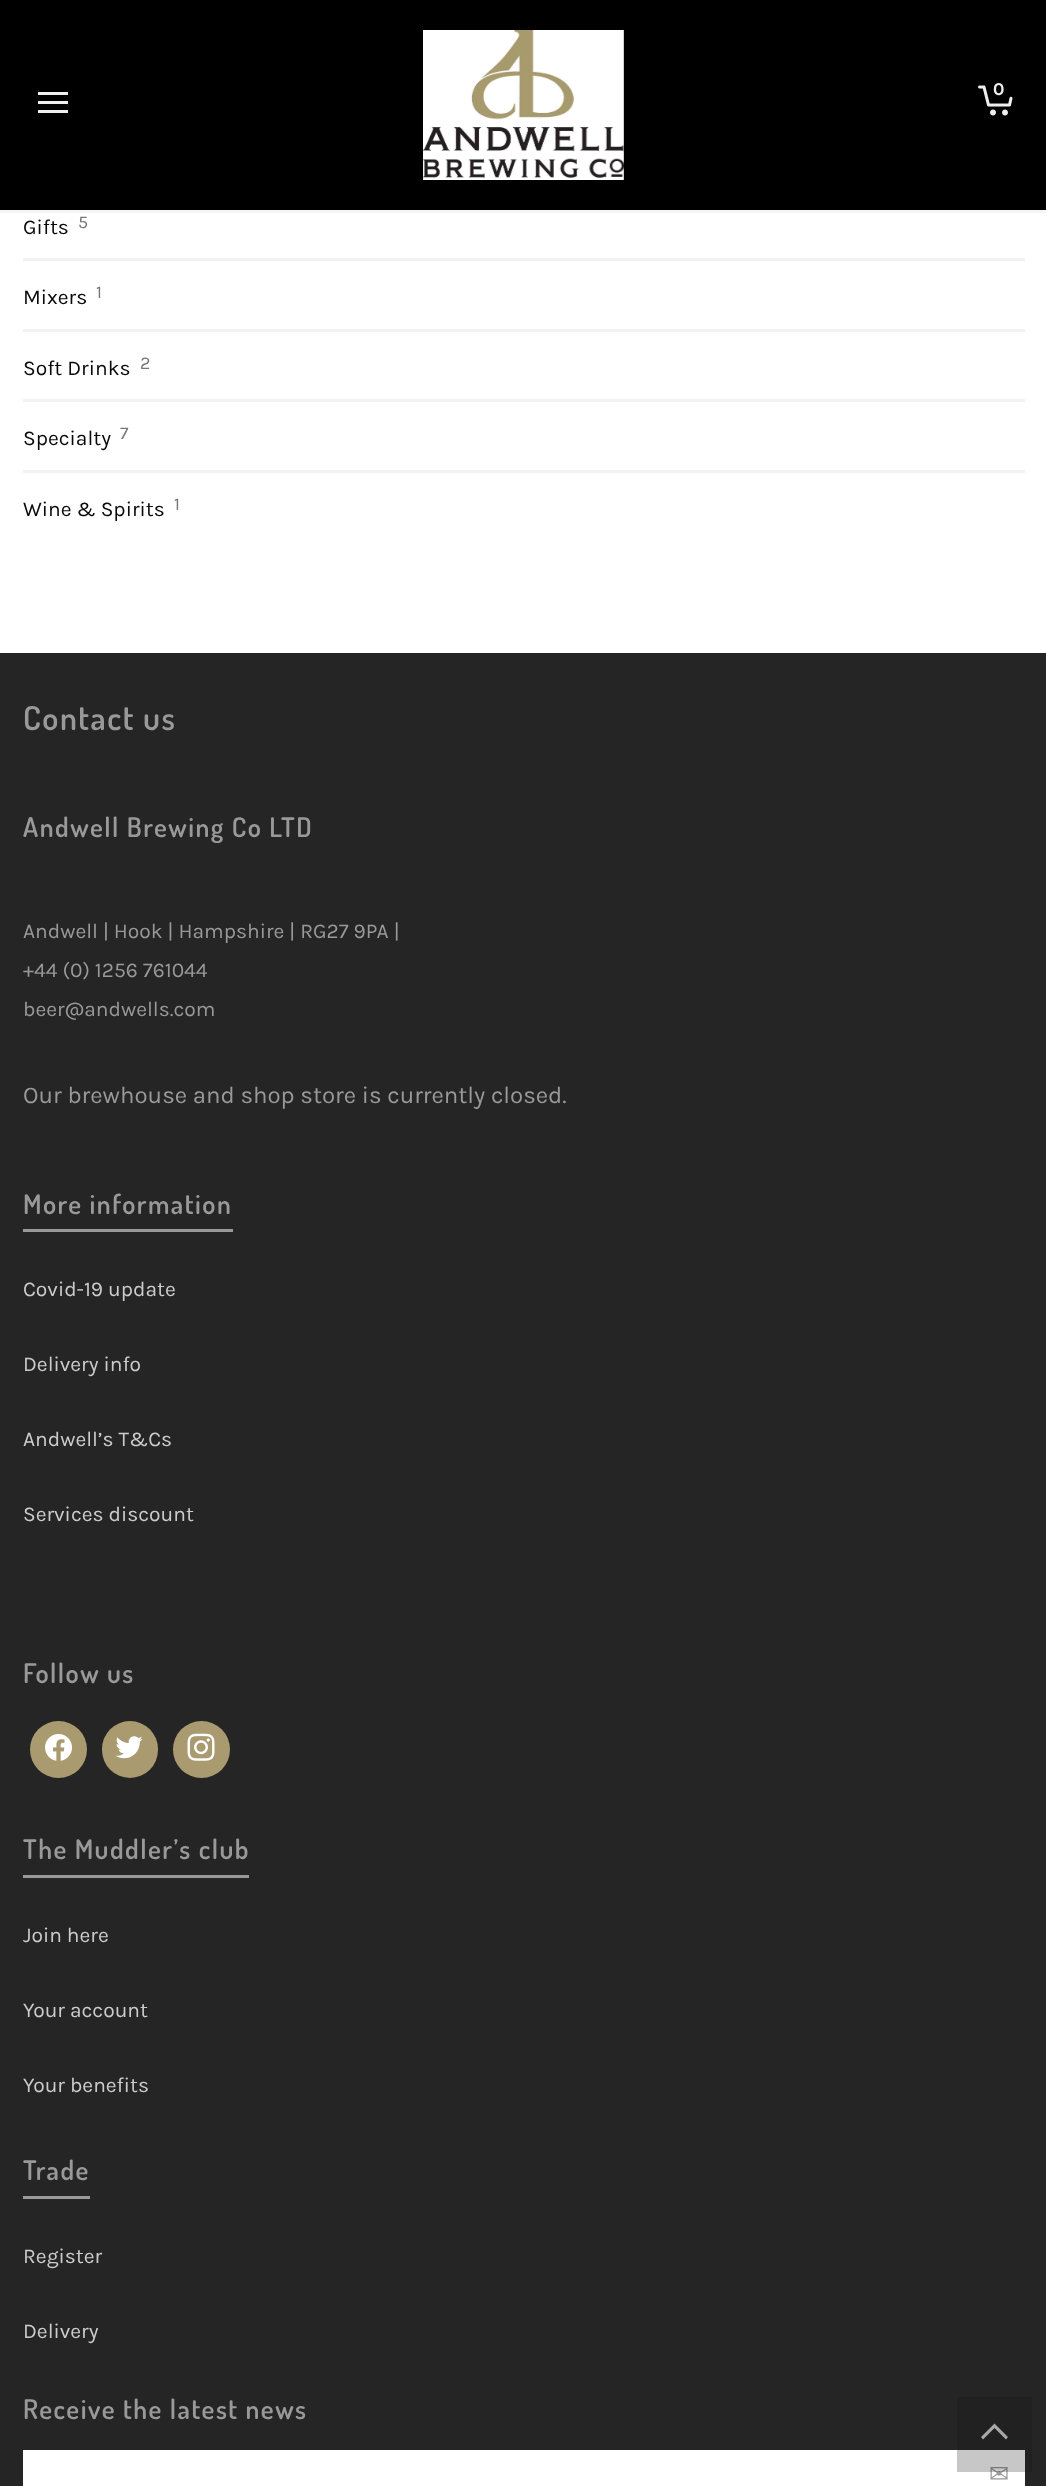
<?xml version="1.0" encoding="UTF-8"?>
<svg xmlns="http://www.w3.org/2000/svg" xmlns:xlink="http://www.w3.org/1999/xlink" width="1046" height="2486">
  <rect width="100%" height="100%" fill="#ffffff" />
  <rect width="1046" height="210" fill="#000000" />
  <rect y="210" width="1046" height="3" fill="#f5f5f5" />
  <image x="423" y="30" width="201" height="150" xlink:href="image1.png" />
  <image x="978" y="85" width="35" height="31" xlink:href="image2.png" />
  <rect x="38" y="101" width="30" height="3" fill="#efefef" />
  <rect x="38" y="92" width="30" height="3" fill="#efefef" />
  <rect x="38" y="110" width="30" height="3" fill="#efefef" />
  <rect x="23" y="258" width="1002" height="3" fill="#f2f2f2" />
  <rect x="23" y="329" width="1002" height="3" fill="#f2f2f2" />
  <rect x="23" y="399" width="1002" height="3" fill="#f2f2f2" />
  <rect x="23" y="470" width="1002" height="3" fill="#f2f2f2" />
  <rect y="653" width="1046" height="1833" fill="#252525" />
  <rect x="23" y="1229" width="210" height="3" fill="#999999" />
  <circle cx="58.5" cy="1749.5" r="28.5" fill="#a99a6f" />
  <image x="45" y="1734" width="27" height="27" xlink:href="image3.png" />
  <rect x="102" y="1721" width="56" height="57" rx="28" fill="#a99a6f" />
  <image x="115" y="1736" width="28" height="23" xlink:href="image4.png" />
  <circle cx="201.5" cy="1749.5" r="28.5" fill="#a99a6f" />
  <image x="187" y="1733" width="28" height="28" xlink:href="image5.png" />
  <rect x="23" y="1875" width="226" height="3" fill="#999999" />
  <rect x="23" y="2196" width="67" height="3" fill="#999999" />
  <rect x="23" y="2450" width="1002" height="36" fill="#ffffff" />
  <text x="993" y="95" style="font-family: Karla; font-size: 18px; font-weight: bold; fill: #efefef">0</text>
  <text x="23" y="234" style="font-family: Karla; font-size: 21px; fill: #0a0a0a">Gifts</text>
  <text x="78" y="228" style="font-family: Karla; font-size: 18px; fill: #777777">5</text>
  <text x="23" y="304" style="font-family: Karla; font-size: 21px; fill: #0a0a0a">Mixers</text>
  <text x="96" y="298" style="font-family: Karla; font-size: 18px; fill: #777777">1</text>
  <text x="23" y="375" style="font-family: Karla; font-size: 21px; fill: #0a0a0a">Soft Drinks</text>
  <text x="140" y="369" style="font-family: Karla; font-size: 18px; fill: #777777">2</text>
  <text x="23" y="445" style="font-family: Karla; font-size: 21px; fill: #0a0a0a">Specialty</text>
  <text x="120" y="439" style="font-family: Karla; font-size: 18px; fill: #777777">7</text>
  <text x="23" y="516" style="font-family: Karla; font-size: 21px; fill: #0a0a0a">Wine &amp; Spirits</text>
  <text x="174" y="510" style="font-family: Karla; font-size: 18px; fill: #777777">1</text>
  <text x="23" y="730" style="font-family: Dosis; font-size: 33px; font-weight: 600; letter-spacing: 1.5px; fill: #999999">Contact us</text>
  <text x="23" y="837" style="font-family: Dosis; font-size: 27px; font-weight: 600; letter-spacing: 1.5px; fill: #999999">Andwell Brewing Co LTD</text>
  <text x="23" y="938" style="font-family: Karla; font-size: 21px; fill: #999999">Andwell | Hook | Hampshire | RG27 9PA |</text>
  <text x="23" y="977" style="font-family: Karla; font-size: 21px; fill: #999999">+44 (0) 1256 761044</text>
  <text x="23" y="1016" style="font-family: Karla; font-size: 21px; fill: #999999">beer@andwells.com</text>
  <text x="23" y="1103" style="font-family: Karla; font-size: 24px; fill: #999999">Our brewhouse and shop store is currently closed.</text>
  <text x="23" y="1214" style="font-family: Dosis; font-size: 27px; font-weight: 600; letter-spacing: 1.5px; fill: #999999">More information</text>
  <text x="23" y="1296" style="font-family: Karla; font-size: 21px; fill: #cccccc">Covid-19 update</text>
  <text x="23" y="1371" style="font-family: Karla; font-size: 21px; fill: #cccccc">Delivery info</text>
  <text x="23" y="1446" style="font-family: Karla; font-size: 21px; fill: #cccccc">Andwell’s T&amp;Cs</text>
  <text x="23" y="1521" style="font-family: Karla; font-size: 21px; fill: #cccccc">Services discount</text>
  <text x="23" y="1683" style="font-family: Dosis; font-size: 27px; font-weight: 600; letter-spacing: 1.5px; fill: #999999">Follow us</text>
  <text x="23" y="1859" style="font-family: Dosis; font-size: 27px; font-weight: 600; letter-spacing: 1.5px; fill: #999999">The Muddler’s club</text>
  <text x="23" y="1942" style="font-family: Karla; font-size: 21px; fill: #cccccc">Join here</text>
  <text x="23" y="2017" style="font-family: Karla; font-size: 21px; fill: #cccccc">Your account</text>
  <text x="23" y="2092" style="font-family: Karla; font-size: 21px; fill: #cccccc">Your benefits</text>
  <text x="23" y="2180" style="font-family: Dosis; font-size: 27px; font-weight: 600; letter-spacing: 1.5px; fill: #999999">Trade</text>
  <text x="23" y="2263" style="font-family: Karla; font-size: 21px; fill: #cccccc">Register</text>
  <text x="23" y="2338" style="font-family: Karla; font-size: 21px; fill: #cccccc">Delivery</text>
  <text x="23" y="2419" style="font-family: Dosis; font-size: 27px; font-weight: 600; letter-spacing: 1.5px; fill: #999999">Receive the latest news</text>
  <text x="989" y="2482" style="font-family: DejaVu Sans; font-size: 24px; fill: #999999">✉</text>
  <rect x="957" y="2397" width="75" height="75" fill="#141414" fill-opacity="0.24" />
  <path d="M 981 2437 l 2 2.5 l 11.5 -11.5 l 11.5 11.5 l 2 -2.5 l -13.5 -13.5 z" fill="#a8a8a8" />
</svg>
